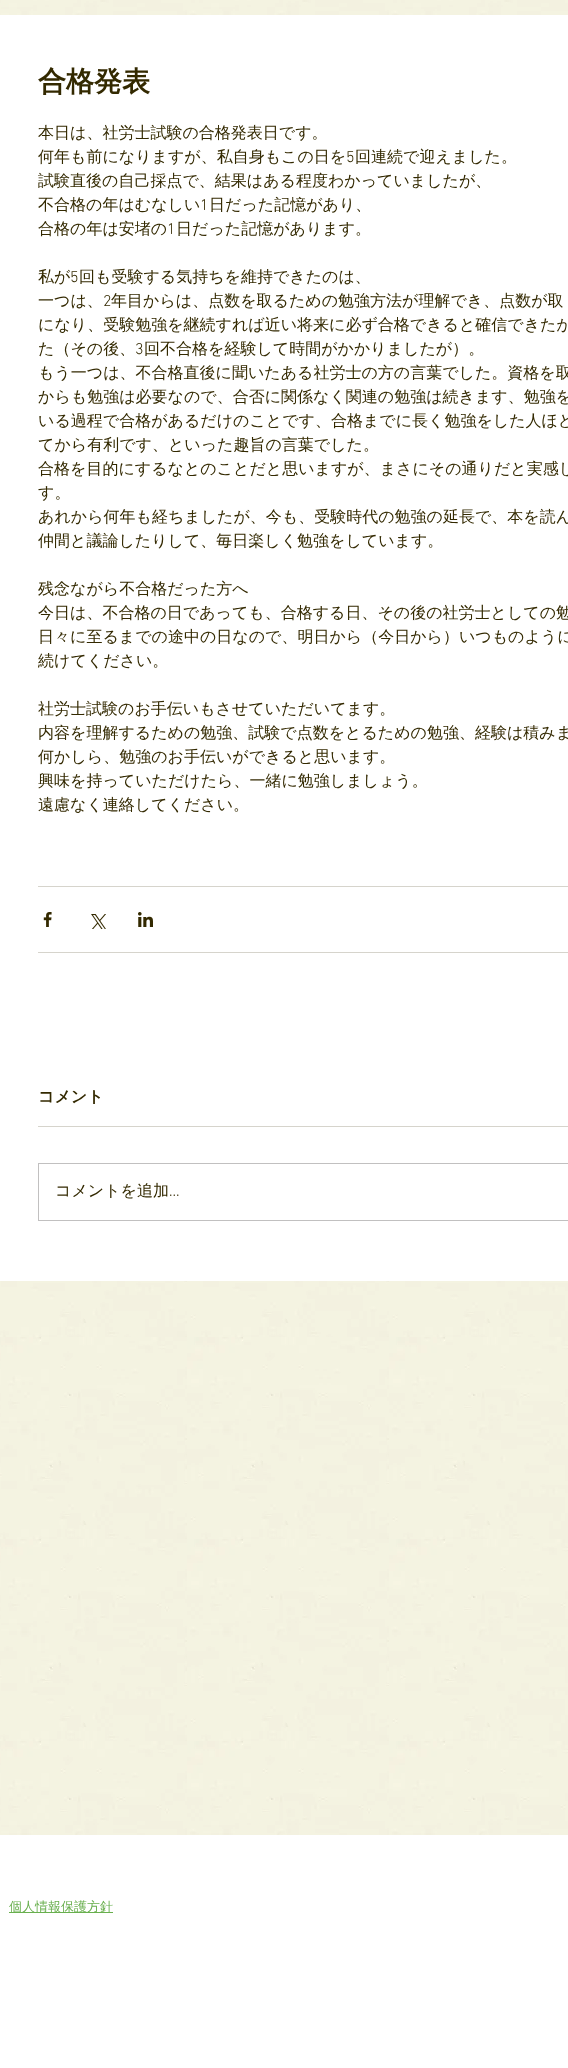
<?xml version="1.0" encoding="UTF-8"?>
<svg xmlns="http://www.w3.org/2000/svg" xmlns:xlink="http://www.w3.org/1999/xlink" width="568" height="2068">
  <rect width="100%" height="100%" fill="#ffffff" />
  <image x="0" y="0" width="568" height="1835" xlink:href="image1.png" />
  <rect y="15" width="568" height="1266" fill="#ffffff" />
  <rect x="38" y="886" width="530" height="1" fill="#d6d4cc" />
  <image x="43" y="912" width="9" height="15" xlink:href="image2.png" />
  <image x="91" y="914" width="15" height="15" xlink:href="image3.png" />
  <image x="138" y="912" width="15" height="15" xlink:href="image4.png" />
  <rect x="38" y="952" width="530" height="1" fill="#d6d4cc" />
  <rect x="38" y="1126" width="530" height="1" fill="#d6d4cc" />
  <rect x="38.5" y="1163.5" width="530" height="57" fill="none" stroke="#c1c0c0" />
  <rect x="9" y="1912" width="104" height="1" fill="#68af4d" />
  <text x="38" y="91" style="font-family: WenQuanYi Zen Hei; font-size: 28px; font-weight: bold; fill: #332900">合格発表</text>
  <text x="38" y="138" style="font-family: WenQuanYi Zen Hei; font-size: 16px; font-weight: 500; fill: #332900">本日は、社労士試験の合格発表日です。</text>
  <text x="38" y="162" style="font-family: WenQuanYi Zen Hei; font-size: 16px; font-weight: 500; fill: #332900">何年も前になりますが、私自身もこの日を</text>
  <text x="346" y="162" style="font-family: 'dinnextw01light'; font-size: 16px; font-weight: 300; fill: #332900">5</text>
  <text x="355" y="162" style="font-family: WenQuanYi Zen Hei; font-size: 16px; font-weight: 500; fill: #332900">回連続で迎えました。</text>
  <text x="38" y="186" style="font-family: WenQuanYi Zen Hei; font-size: 16px; font-weight: 500; fill: #332900">試験直後の自己採点で、結果はある程度わかっていましたが、</text>
  <text x="38" y="210" style="font-family: WenQuanYi Zen Hei; font-size: 16px; font-weight: 500; fill: #332900">不合格の年はむなしい</text>
  <text x="200" y="210" style="font-family: 'dinnextw01light'; font-size: 16px; font-weight: 300; fill: #332900">1</text>
  <text x="209" y="210" style="font-family: WenQuanYi Zen Hei; font-size: 16px; font-weight: 500; fill: #332900">日だった記憶があり、</text>
  <text x="38" y="234" style="font-family: WenQuanYi Zen Hei; font-size: 16px; font-weight: 500; fill: #332900">合格の年は安堵の</text>
  <text x="167" y="234" style="font-family: 'dinnextw01light'; font-size: 16px; font-weight: 300; fill: #332900">1</text>
  <text x="176" y="234" style="font-family: WenQuanYi Zen Hei; font-size: 16px; font-weight: 500; fill: #332900">日だった記憶があります。</text>
  <text x="38" y="282" style="font-family: WenQuanYi Zen Hei; font-size: 16px; font-weight: 500; fill: #332900">私が</text>
  <text x="70" y="282" style="font-family: 'dinnextw01light'; font-size: 16px; font-weight: 300; fill: #332900">5</text>
  <text x="79" y="282" style="font-family: WenQuanYi Zen Hei; font-size: 16px; font-weight: 500; fill: #332900">回も受験する気持ちを維持できたのは、</text>
  <text x="38" y="306" style="font-family: WenQuanYi Zen Hei; font-size: 16px; font-weight: 500; fill: #332900">一つは、</text>
  <text x="103" y="306" style="font-family: 'dinnextw01light'; font-size: 16px; font-weight: 300; fill: #332900">2</text>
  <text x="111" y="306" style="font-family: WenQuanYi Zen Hei; font-size: 16px; font-weight: 500; fill: #332900">年目からは、点数を取るための勉強方法が理解でき、点数が取</text>
  <text x="38" y="330" style="font-family: WenQuanYi Zen Hei; font-size: 16px; font-weight: 500; fill: #332900">になり、受験勉強を継続すれば近い将来に必ず合格できると確信できたか</text>
  <text x="38" y="354" style="font-family: WenQuanYi Zen Hei; font-size: 16px; font-weight: 500; fill: #332900">た（その後、</text>
  <text x="135" y="354" style="font-family: 'dinnextw01light'; font-size: 16px; font-weight: 300; fill: #332900">3</text>
  <text x="144" y="354" style="font-family: WenQuanYi Zen Hei; font-size: 16px; font-weight: 500; fill: #332900">回不合格を経験して時間がかかりましたが）。</text>
  <text x="38" y="378" style="font-family: WenQuanYi Zen Hei; font-size: 16px; font-weight: 500; fill: #332900">もう一つは、不合格直後に聞いたある社労士の方の言葉でした。資格を取</text>
  <text x="38" y="402" style="font-family: WenQuanYi Zen Hei; font-size: 16px; font-weight: 500; fill: #332900">からも勉強は必要なので、合否に関係なく関連の勉強は続きます、勉強を</text>
  <text x="38" y="426" style="font-family: WenQuanYi Zen Hei; font-size: 16px; font-weight: 500; fill: #332900">いる過程で合格があるだけのことです、合格までに長く勉強をした人ほど</text>
  <text x="38" y="450" style="font-family: WenQuanYi Zen Hei; font-size: 16px; font-weight: 500; fill: #332900">てから有利です、といった趣旨の言葉でした。</text>
  <text x="38" y="474" style="font-family: WenQuanYi Zen Hei; font-size: 16px; font-weight: 500; fill: #332900">合格を目的にするなとのことだと思いますが、まさにその通りだと実感し</text>
  <text x="38" y="498" style="font-family: WenQuanYi Zen Hei; font-size: 16px; font-weight: 500; fill: #332900">す。</text>
  <text x="38" y="522" style="font-family: WenQuanYi Zen Hei; font-size: 16px; font-weight: 500; fill: #332900">あれから何年も経ちましたが、今も、受験時代の勉強の延長で、本を読ん</text>
  <text x="38" y="546" style="font-family: WenQuanYi Zen Hei; font-size: 16px; font-weight: 500; fill: #332900">仲間と議論したりして、毎日楽しく勉強をしています。</text>
  <text x="38" y="594" style="font-family: WenQuanYi Zen Hei; font-size: 16px; font-weight: 500; fill: #332900">残念ながら不合格だった方へ</text>
  <text x="38" y="618" style="font-family: WenQuanYi Zen Hei; font-size: 16px; font-weight: 500; fill: #332900">今日は、不合格の日であっても、合格する日、その後の社労士としての勉</text>
  <text x="38" y="642" style="font-family: WenQuanYi Zen Hei; font-size: 16px; font-weight: 500; fill: #332900">日々に至るまでの途中の日なので、明日から（今日から）いつものように</text>
  <text x="38" y="666" style="font-family: WenQuanYi Zen Hei; font-size: 16px; font-weight: 500; fill: #332900">続けてください。</text>
  <text x="38" y="714" style="font-family: WenQuanYi Zen Hei; font-size: 16px; font-weight: 500; fill: #332900">社労士試験のお手伝いもさせていただいてます。</text>
  <text x="38" y="738" style="font-family: WenQuanYi Zen Hei; font-size: 16px; font-weight: 500; fill: #332900">内容を理解するための勉強、試験で点数をとるための勉強、経験は積みま</text>
  <text x="38" y="762" style="font-family: WenQuanYi Zen Hei; font-size: 16px; font-weight: 500; fill: #332900">何かしら、勉強のお手伝いができると思います。</text>
  <text x="38" y="786" style="font-family: WenQuanYi Zen Hei; font-size: 16px; font-weight: 500; fill: #332900">興味を持っていただけたら、一緒に勉強しましょう。</text>
  <text x="38" y="810" style="font-family: WenQuanYi Zen Hei; font-size: 16px; font-weight: 500; fill: #332900">遠慮なく連絡してください。</text>
  <text x="38" y="1102" style="font-family: WenQuanYi Zen Hei; font-size: 16px; font-weight: bold; fill: #332900">コメント</text>
  <text x="55" y="1196" style="font-family: WenQuanYi Zen Hei; font-size: 16px; font-weight: 500; fill: #332900">コメントを追加</text>
  <text x="169" y="1196" style="font-family: 'dinnextw01light'; font-size: 16px; font-weight: 300; fill: #332900">…</text>
  <text x="9" y="1911" style="font-family: WenQuanYi Zen Hei; font-size: 13px; font-weight: 500; fill: #68af4d">個人情報保護方針</text>
</svg>
